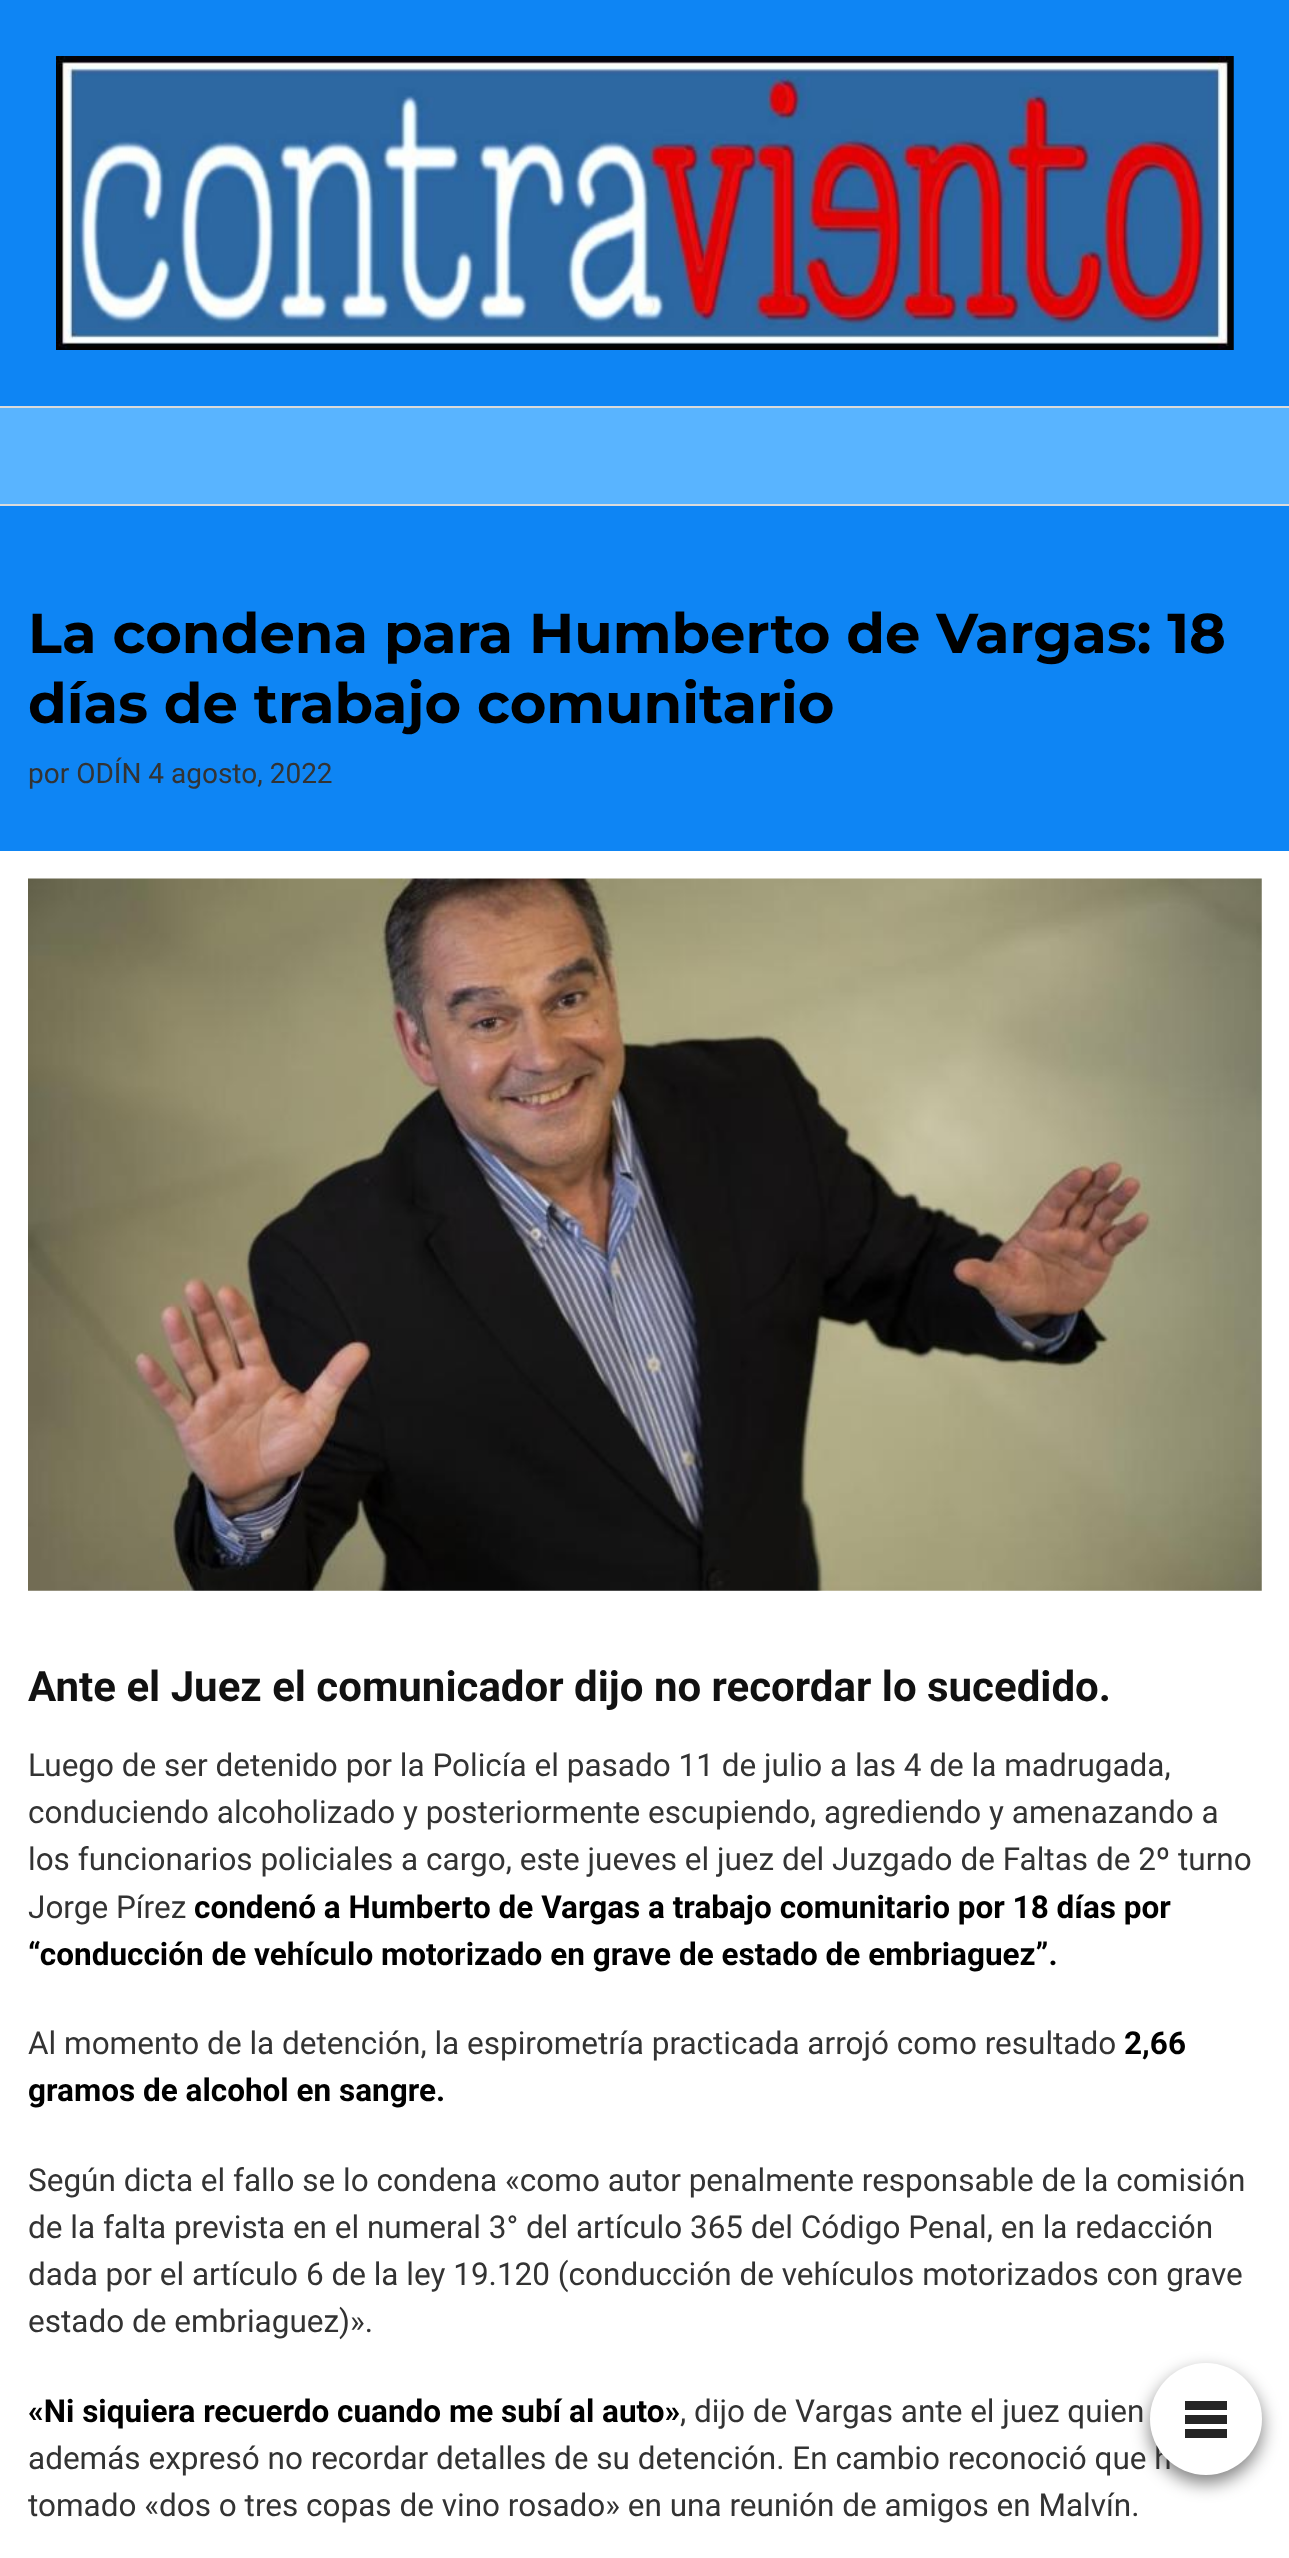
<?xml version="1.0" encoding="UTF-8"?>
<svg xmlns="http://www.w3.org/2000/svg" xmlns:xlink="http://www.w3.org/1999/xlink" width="1289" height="2558">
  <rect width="100%" height="100%" fill="#0e85f4" />
  <rect y="406" width="1289" height="2" fill="#dbdbdb" />
  <image x="56" y="56" width="1178" height="294" xlink:href="image1.png" />
  <rect y="408" width="1289" height="96" fill="#59b4ff" />
  <rect y="504" width="1289" height="2" fill="#dbdbdb" />
  <rect y="851" width="1289" height="1707" fill="#ffffff" />
  <rect x="1150" y="2371" width="112" height="112" rx="56" fill="#000000" fill-opacity="0.5" filter="blur(9px)" />
  <image x="28" y="878" width="1234" height="713" xlink:href="image2.png" />
  <text x="28" y="653" style="font-family: Montserrat; font-size: 56px; font-weight: bold; fill: #000000">La condena para Humberto de Vargas: 18</text>
  <text x="28" y="723" style="font-family: Montserrat; font-size: 56px; font-weight: bold; fill: #000000">días de trabajo comunitario</text>
  <text x="28" y="783" style="font-family: Roboto; font-size: 28px; fill: #333333">por ODÍN 4 agosto, 2022</text>
  <text x="28" y="1701" style="font-family: Roboto; font-size: 42px; font-weight: bold; fill: #111111">Ante el Juez el comunicador dijo no recordar lo sucedido.</text>
  <text x="28" y="1776" style="font-family: Roboto; font-size: 31.5px; fill: #333333">Luego de ser detenido por la Policía el pasado 11 de julio a las 4 de la madrugada,</text>
  <text x="28" y="1823" style="font-family: Roboto; font-size: 31.5px; fill: #333333">conduciendo alcoholizado y posteriormente escupiendo, agrediendo y amenazando a</text>
  <text x="28" y="1870" style="font-family: Roboto; font-size: 31.5px; fill: #333333">los funcionarios policiales a cargo, este jueves el juez del Juzgado de Faltas de 2º turno</text>
  <text x="28" y="1918" style="font-family: Roboto; font-size: 31.5px; fill: #333333">Jorge Pírez</text>
  <text x="194" y="1918" style="font-family: Roboto; font-size: 31.5px; font-weight: bold; fill: #000000">condenó a Humberto de Vargas a trabajo comunitario por 18 días por</text>
  <text x="28" y="1965" style="font-family: Roboto; font-size: 31.5px; font-weight: bold; fill: #000000">“conducción de vehículo motorizado en grave de estado de embriaguez”.</text>
  <text x="28" y="2054" style="font-family: Roboto; font-size: 31.5px; fill: #333333">Al momento de la detención, la espirometría practicada arrojó como resultado</text>
  <text x="1124" y="2054" style="font-family: Roboto; font-size: 31.5px; font-weight: bold; fill: #000000">2,66</text>
  <text x="28" y="2101" style="font-family: Roboto; font-size: 31.5px; font-weight: bold; fill: #000000">gramos de alcohol en sangre.</text>
  <text x="28" y="2191" style="font-family: Roboto; font-size: 31.5px; fill: #333333">Según dicta el fallo se lo condena «como autor penalmente responsable de la comisión</text>
  <text x="28" y="2238" style="font-family: Roboto; font-size: 31.5px; fill: #333333">de la falta prevista en el numeral 3° del artículo 365 del Código Penal, en la redacción</text>
  <text x="28" y="2285" style="font-family: Roboto; font-size: 31.5px; fill: #333333">dada por el artículo 6 de la ley 19.120 (conducción de vehículos motorizados con grave</text>
  <text x="28" y="2332" style="font-family: Roboto; font-size: 31.5px; fill: #333333">estado de embriaguez)».</text>
  <text x="28" y="2422" style="font-family: Roboto; font-size: 31.5px; font-weight: bold; fill: #000000">«Ni siquiera recuerdo cuando me subí al auto»</text>
  <text x="680" y="2422" style="font-family: Roboto; font-size: 31.5px; fill: #333333">, dijo de Vargas ante el juez quien</text>
  <text x="28" y="2469" style="font-family: Roboto; font-size: 31.5px; fill: #333333">además expresó no recordar detalles de su detención. En cambio reconoció que h</text>
  <circle cx="1206" cy="2419" r="56" fill="#ffffff" />
  <rect x="1185" y="2429" width="42" height="9" fill="#252525" />
  <rect x="1185" y="2401" width="42" height="9" fill="#252525" />
  <rect x="1185" y="2415" width="42" height="9" fill="#252525" />
  <text x="28" y="2516" style="font-family: Roboto; font-size: 31.5px; fill: #333333">tomado «dos o tres copas de vino rosado» en una reunión de amigos en Malvín.</text>
</svg>
